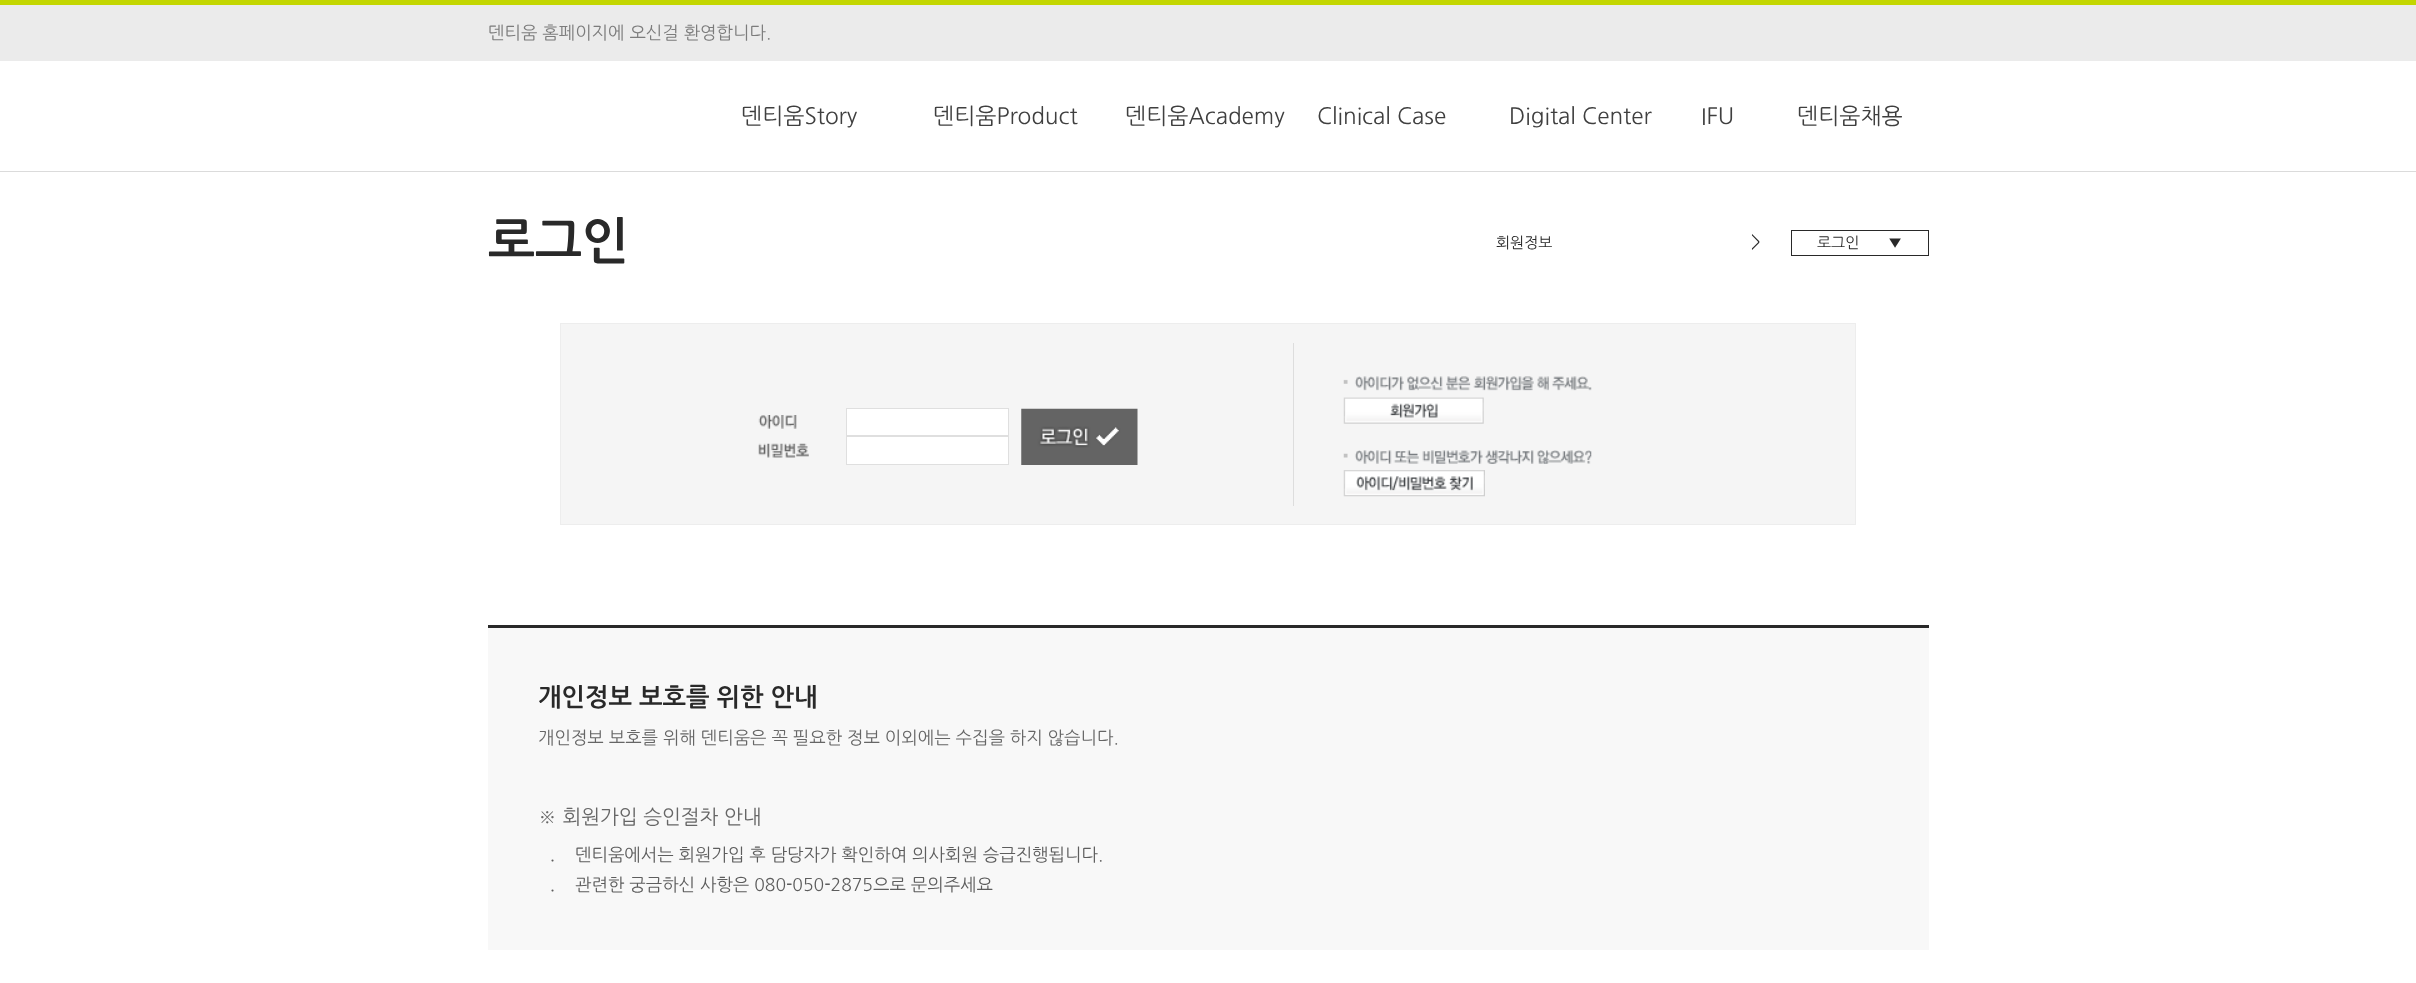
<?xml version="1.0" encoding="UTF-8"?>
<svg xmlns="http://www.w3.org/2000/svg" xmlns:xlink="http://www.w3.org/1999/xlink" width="2416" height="983">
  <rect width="100%" height="100%" fill="#ffffff" />
  <rect y="5" width="2416" height="56" fill="#ebebeb" />
  <rect width="2416" height="5" fill="#c3d600" />
  <rect y="171" width="2416" height="1" fill="#dbdbdb" />
  <rect x="1791.5" y="230.5" width="137" height="25" fill="none" stroke="#292929" />
  <rect x="561" y="324" width="1294" height="200" fill="#f5f5f5" />
  <rect x="560" y="323" width="1296" height="1" fill="#ededed" />
  <rect x="1855" y="323" width="1" height="202" fill="#ededed" />
  <rect x="560" y="524" width="1296" height="1" fill="#ededed" />
  <rect x="560" y="323" width="1" height="202" fill="#ededed" />
  <rect x="1293" y="343" width="1" height="163" fill="#dddddd" />
  <image x="758" y="415" width="39" height="14" xlink:href="image1.png" />
  <rect x="846.5" y="408.5" width="162" height="27" fill="#ffffff" stroke="#dfdfdf" />
  <image x="758" y="443" width="51" height="15" xlink:href="image2.png" />
  <rect x="846.5" y="436.5" width="162" height="28" fill="#ffffff" stroke="#dfdfdf" />
  <image x="1021" y="408" width="117" height="57" xlink:href="image3.png" />
  <image x="1343" y="376" width="249" height="15" xlink:href="image4.png" />
  <image x="1343" y="397" width="141" height="27" xlink:href="image5.png" />
  <image x="1343" y="450" width="249" height="14" xlink:href="image6.png" />
  <image x="1343" y="470" width="142" height="27" xlink:href="image7.png" />
  <rect x="488" y="628" width="1441" height="322" fill="#f8f8f8" />
  <rect x="488" y="625" width="1441" height="3" fill="#292929" />
  <text x="488" y="39" style="font-family: NanumGothic; font-size: 17.5px; fill: #7c7c7c">덴티움 홈페이지에 오신걸 환영합니다.</text>
  <text x="741" y="124" style="font-family: NanumGothic; font-size: 22.5px; fill: #3f3f3f">덴티움Story</text>
  <text x="933" y="124" style="font-family: NanumGothic; font-size: 22.5px; fill: #3f3f3f">덴티움Product</text>
  <text x="1125" y="124" style="font-family: NanumGothic; font-size: 22.5px; fill: #3f3f3f">덴티움Academy</text>
  <text x="1317" y="124" style="font-family: NanumGothic; font-size: 22.5px; fill: #3f3f3f">Clinical Case</text>
  <text x="1509" y="124" style="font-family: NanumGothic; font-size: 22.5px; fill: #3f3f3f">Digital Center</text>
  <text x="1701" y="124" style="font-family: NanumGothic; font-size: 22.5px; fill: #3f3f3f">IFU</text>
  <text x="1797" y="124" style="font-family: NanumGothic; font-size: 22.5px; fill: #3f3f3f">덴티움채용</text>
  <text x="488" y="259" style="font-family: NanumGothic; font-size: 50px; font-weight: bold; fill: #292929">로그인</text>
  <text x="1496" y="248" style="font-family: NanumGothic; font-size: 15px; fill: #292929">회원정보</text>
  <text x="1751" y="248" style="font-family: NanumGothic; font-size: 17.5px; fill: #292929">&gt;</text>
  <text x="1817" y="248" style="font-family: NanumGothic; font-size: 15px; fill: #292929">로그인</text>
  <text x="1888" y="248" style="font-family: NanumGothic; font-size: 15px; fill: #292929">▼</text>
  <text x="538" y="706" style="font-family: NanumGothic; font-size: 25px; font-weight: bold; fill: #292929">개인정보 보호를 위한 안내</text>
  <text x="538" y="744" style="font-family: NanumGothic; font-size: 17.5px; fill: #666666">개인정보 보호를 위해 덴티움은 꼭 필요한 정보 이외에는 수집을 하지 않습니다.</text>
  <text x="538" y="824" style="font-family: NanumGothic; font-size: 20px; fill: #666666">※ 회원가입 승인절차 안내</text>
  <text x="550" y="867" style="font-family: NanumGothic; font-size: 17.5px; fill: #5d5d5d">·</text>
  <text x="575" y="861" style="font-family: NanumGothic; font-size: 17.5px; fill: #5d5d5d">덴티움에서는 회원가입 후 담당자가 확인하여 의사회원 승급진행됩니다.</text>
  <text x="550" y="897" style="font-family: NanumGothic; font-size: 17.5px; fill: #5d5d5d">·</text>
  <text x="575" y="891" style="font-family: NanumGothic; font-size: 17.5px; fill: #5d5d5d">관련한 궁금하신 사항은 080-050-2875으로 문의주세요</text>
</svg>
